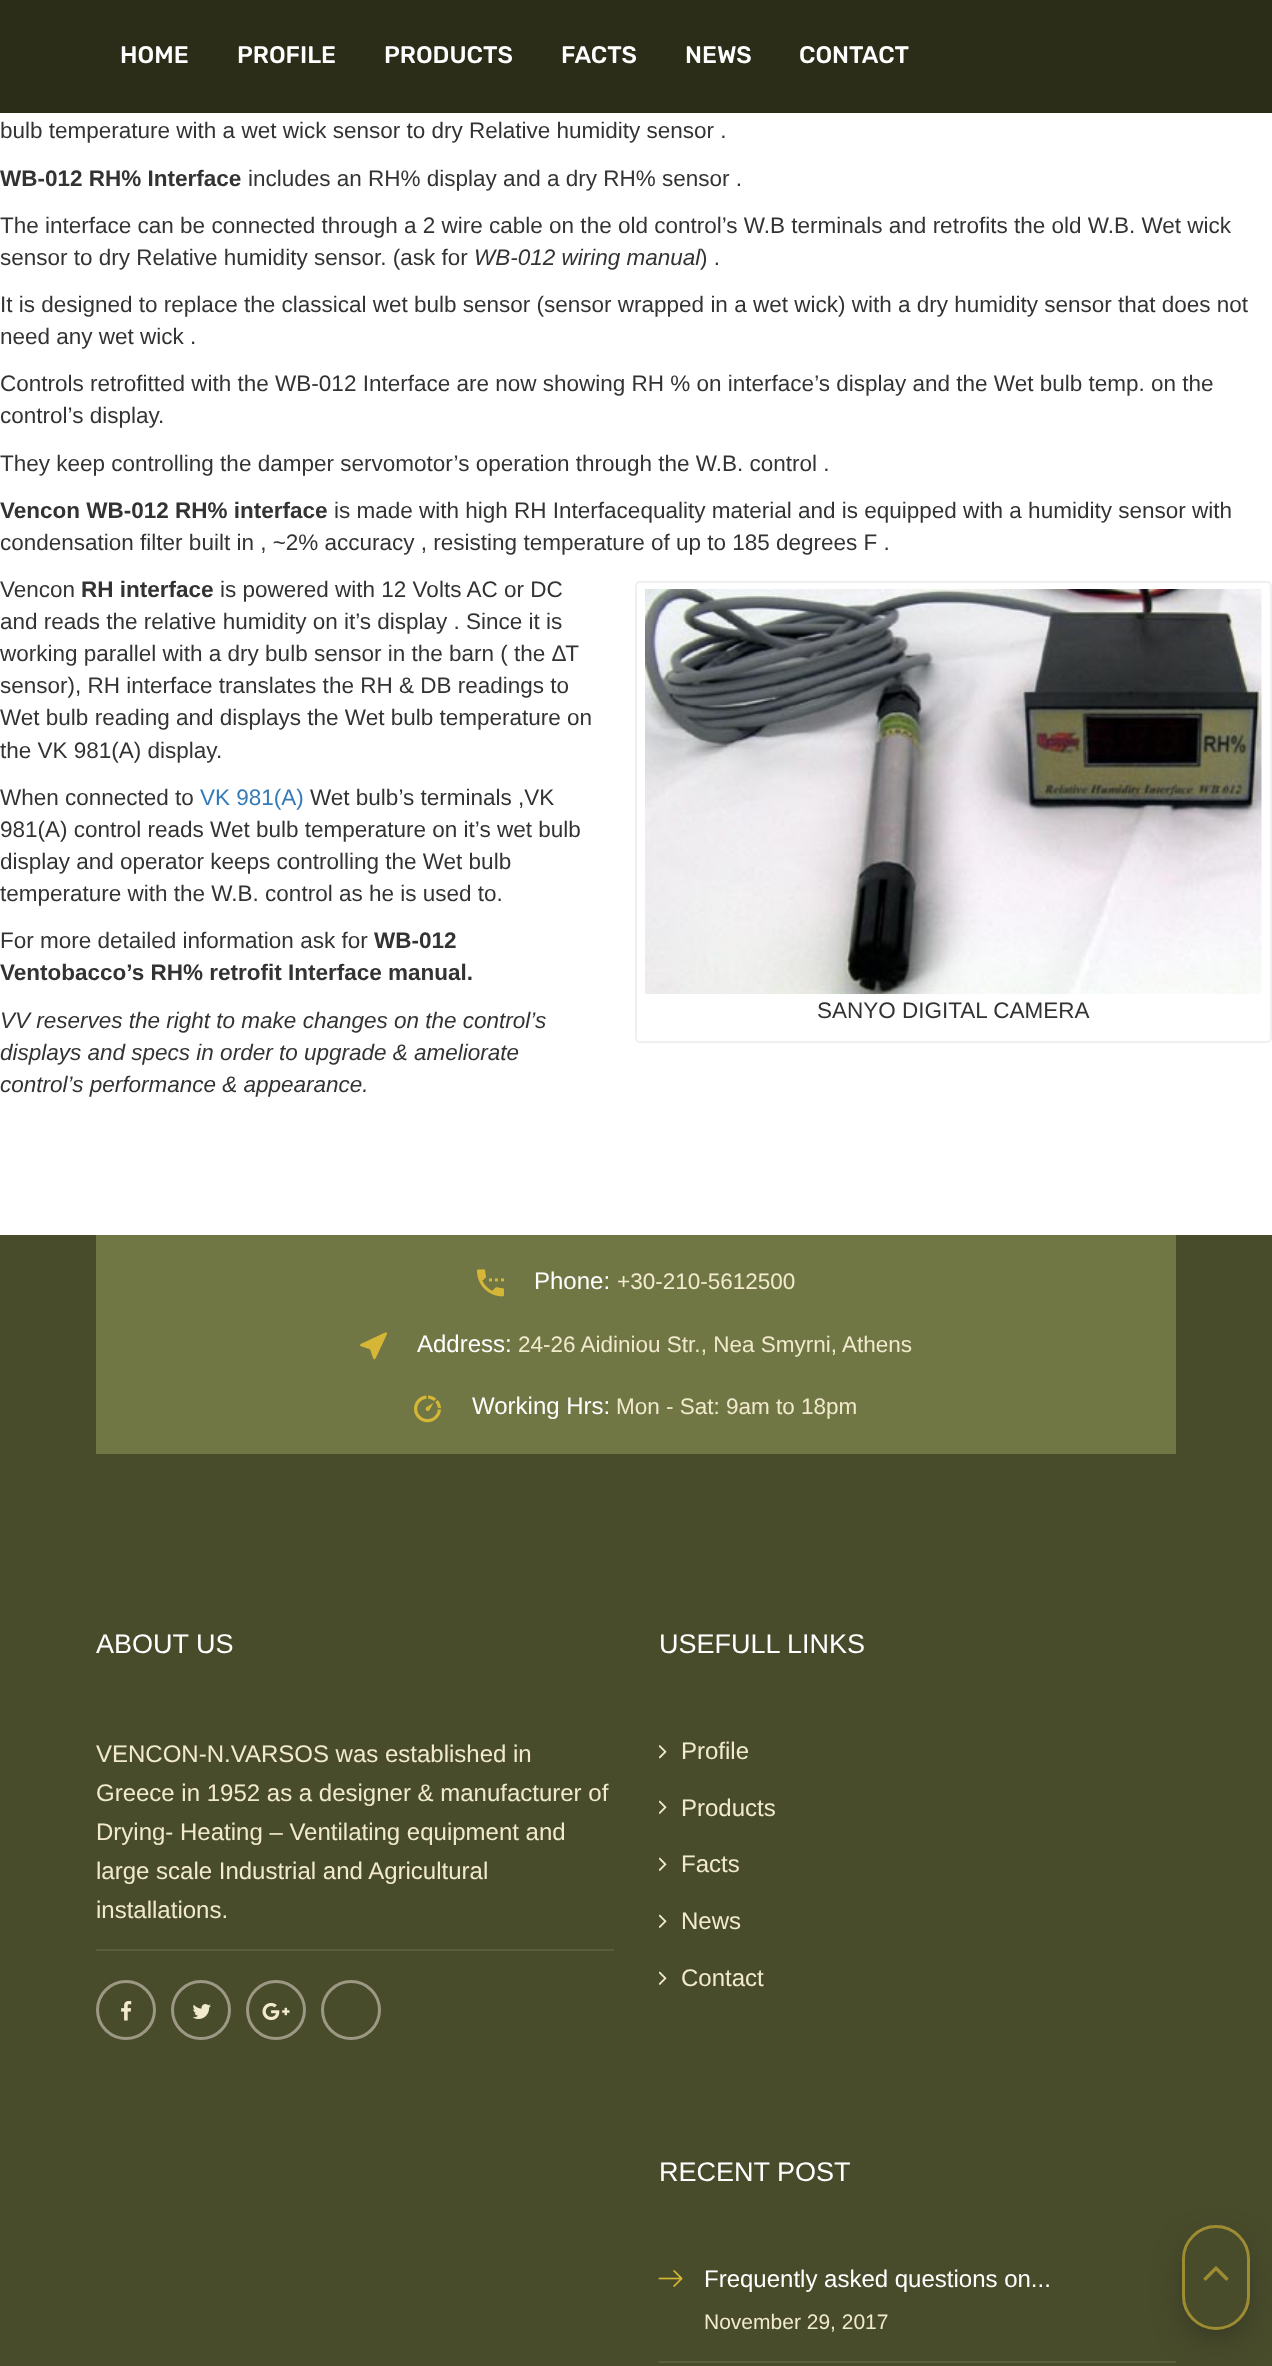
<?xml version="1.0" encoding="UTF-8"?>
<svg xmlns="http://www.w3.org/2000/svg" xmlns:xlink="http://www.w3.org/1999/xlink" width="1272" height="2366">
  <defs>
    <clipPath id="clip1"><path d="M 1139 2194 h 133 v 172 h -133 z m 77 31 c 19 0 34 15 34 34 v 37 c 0 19 -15 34 -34 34 c -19 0 -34 -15 -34 -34 v -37 c 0 -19 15 -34 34 -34 z" clip-rule="evenodd" /></clipPath>
  </defs>
  <rect width="100%" height="100%" fill="#ffffff" />
  <rect width="1272" height="113" fill="#2b2d19" />
  <rect x="636" y="582" width="635" height="460" rx="4" fill="none" stroke="#f0f0f0" stroke-width="2" />
  <image x="645" y="589" width="617" height="405" xlink:href="image1.png" />
  <rect y="1235" width="1272" height="1131" fill="#484c2b" />
  <rect x="96" y="1235" width="1080" height="219" fill="#717744" />
  <image x="477" y="1269" width="27" height="28" xlink:href="image2.png" />
  <image x="360" y="1332" width="27" height="28" xlink:href="image3.png" />
  <image x="414" y="1395" width="27" height="28" xlink:href="image4.png" />
  <rect x="96" y="1949" width="518" height="2" fill="#5a5d40" />
  <circle cx="126" cy="2010" r="28.5" fill="none" stroke="#9d9884" stroke-width="3" />
  <image x="121" y="2001" width="11" height="20" xlink:href="image5.png" />
  <circle cx="201" cy="2010" r="28.5" fill="none" stroke="#9d9884" stroke-width="3" />
  <image x="192" y="2004" width="19" height="15" xlink:href="image6.png" />
  <circle cx="276" cy="2010" r="28.5" fill="none" stroke="#9d9884" stroke-width="3" />
  <image x="262" y="2002" width="28" height="19" xlink:href="image7.png" />
  <circle cx="351" cy="2010" r="28.5" fill="none" stroke="#9d9884" stroke-width="3" />
  <image x="659" y="1745" width="8" height="14" xlink:href="image8.png" />
  <image x="659" y="1800" width="8" height="14" xlink:href="image9.png" />
  <image x="659" y="1857" width="8" height="14" xlink:href="image9.png" />
  <image x="659" y="1914" width="8" height="14" xlink:href="image9.png" />
  <image x="659" y="1971" width="8" height="14" xlink:href="image9.png" />
  <rect x="659" y="2361" width="517" height="2" fill="#5a5d40" />
  <image x="658" y="2270" width="25" height="17" xlink:href="image10.png" />
  <g clip-path="url(#clip1)">
    <rect x="1191" y="2246" width="50" height="87" rx="25" fill="#2d2e21" filter="blur(17px)" />
  </g>
  <rect x="1183.5" y="2226.5" width="65" height="102" rx="32.5" fill="none" stroke="#9e8c32" stroke-width="3" />
  <image x="1203" y="2266" width="26" height="15" xlink:href="image11.png" />
  <text x="120" y="63" style="font-family: Rubik; font-size: 24px; font-weight: 500; fill: #ffffff">HOME</text>
  <text x="237" y="63" style="font-family: Rubik; font-size: 24px; font-weight: 500; fill: #ffffff">PROFILE</text>
  <text x="384" y="63" style="font-family: Rubik; font-size: 24px; font-weight: 500; fill: #ffffff">PRODUCTS</text>
  <text x="561" y="63" style="font-family: Rubik; font-size: 24px; font-weight: 500; fill: #ffffff">FACTS</text>
  <text x="685" y="63" style="font-family: Rubik; font-size: 24px; font-weight: 500; fill: #ffffff">NEWS</text>
  <text x="799" y="63" style="font-family: Rubik; font-size: 24px; font-weight: 500; fill: #ffffff">CONTACT</text>
  <text x="0" y="138" style="font-family: Liberation Sans; font-size: 22.5px; fill: #333333">bulb temperature with a wet wick sensor to dry Relative humidity sensor .</text>
  <text x="0" y="186" style="font-family: Liberation Sans; font-size: 22.5px; font-weight: bold; fill: #333333">WB-012 RH% Interface</text>
  <text x="248" y="186" style="font-family: Liberation Sans; font-size: 22.5px; fill: #333333">includes an RH% display and a dry RH% sensor .</text>
  <text x="0" y="233" style="font-family: Liberation Sans; font-size: 22.5px; fill: #333333">The interface can be connected through a 2 wire cable on the old control’s W.B terminals and retrofits the old W.B. Wet wick</text>
  <text x="0" y="265" style="font-family: Liberation Sans; font-size: 22.5px; fill: #333333">sensor to dry Relative humidity sensor. (ask for</text>
  <text x="474" y="265" style="font-family: Liberation Sans; font-size: 22.5px; font-style: italic; fill: #333333">WB-012 wiring manual</text>
  <text x="700" y="265" style="font-family: Liberation Sans; font-size: 22.5px; fill: #333333">) .</text>
  <text x="0" y="312" style="font-family: Liberation Sans; font-size: 22.5px; fill: #333333">It is designed to replace the classical wet bulb sensor (sensor wrapped in a wet wick) with a dry humidity sensor that does not</text>
  <text x="0" y="344" style="font-family: Liberation Sans; font-size: 22.5px; fill: #333333">need any wet wick .</text>
  <text x="0" y="391" style="font-family: Liberation Sans; font-size: 22.5px; fill: #333333">Controls retrofitted with the WB-012 Interface are now showing RH % on interface’s display and the Wet bulb temp. on the</text>
  <text x="0" y="423" style="font-family: Liberation Sans; font-size: 22.5px; fill: #333333">control’s display.</text>
  <text x="0" y="471" style="font-family: Liberation Sans; font-size: 22.5px; fill: #333333">They keep controlling the damper servomotor’s operation through the W.B. control .</text>
  <text x="0" y="518" style="font-family: Liberation Sans; font-size: 22.5px; font-weight: bold; fill: #333333">Vencon WB-012 RH% interface</text>
  <text x="334" y="518" style="font-family: Liberation Sans; font-size: 22.5px; fill: #333333">is made with high RH Interfacequality material and is equipped with a humidity sensor with</text>
  <text x="0" y="550" style="font-family: Liberation Sans; font-size: 22.5px; fill: #333333">condensation filter built in , ~2% accuracy , resisting temperature of up to 185 degrees F .</text>
  <text x="0" y="597" style="font-family: Liberation Sans; font-size: 22.5px; fill: #333333">Vencon</text>
  <text x="81" y="597" style="font-family: Liberation Sans; font-size: 22.5px; font-weight: bold; fill: #333333">RH interface</text>
  <text x="220" y="597" style="font-family: Liberation Sans; font-size: 22.5px; fill: #333333">is powered with 12 Volts AC or DC</text>
  <text x="0" y="629" style="font-family: Liberation Sans; font-size: 22.5px; fill: #333333">and reads the relative humidity on it’s display . Since it is</text>
  <text x="0" y="661" style="font-family: Liberation Sans; font-size: 22.5px; fill: #333333">working parallel with a dry bulb sensor in the barn ( the ΔΤ</text>
  <text x="0" y="693" style="font-family: Liberation Sans; font-size: 22.5px; fill: #333333">sensor), RH interface translates the RH &amp; DB readings to</text>
  <text x="0" y="725" style="font-family: Liberation Sans; font-size: 22.5px; fill: #333333">Wet bulb reading and displays the Wet bulb temperature on</text>
  <text x="0" y="758" style="font-family: Liberation Sans; font-size: 22.5px; fill: #333333">the VK 981(A) display.</text>
  <text x="0" y="805" style="font-family: Liberation Sans; font-size: 22.5px; fill: #333333">When connected to</text>
  <text x="200" y="805" style="font-family: Liberation Sans; font-size: 22.5px; fill: #337ab7">VK 981(A)</text>
  <text x="310" y="805" style="font-family: Liberation Sans; font-size: 22.5px; fill: #333333">Wet bulb’s terminals ,VK</text>
  <text x="0" y="837" style="font-family: Liberation Sans; font-size: 22.5px; fill: #333333">981(A) control reads Wet bulb temperature on it’s wet bulb</text>
  <text x="0" y="869" style="font-family: Liberation Sans; font-size: 22.5px; fill: #333333">display and operator keeps controlling the Wet bulb</text>
  <text x="0" y="901" style="font-family: Liberation Sans; font-size: 22.5px; fill: #333333">temperature with the W.B. control as he is used to.</text>
  <text x="0" y="948" style="font-family: Liberation Sans; font-size: 22.5px; fill: #333333">For more detailed information ask for</text>
  <text x="374" y="948" style="font-family: Liberation Sans; font-size: 22.5px; font-weight: bold; fill: #333333">WB-012</text>
  <text x="0" y="980" style="font-family: Liberation Sans; font-size: 22.5px; font-weight: bold; fill: #333333">Ventobacco’s RH% retrofit Interface manual.</text>
  <text x="0" y="1028" style="font-family: Liberation Sans; font-size: 22.5px; font-style: italic; fill: #333333">VV reserves the right to make changes on the control’s</text>
  <text x="0" y="1060" style="font-family: Liberation Sans; font-size: 22.5px; font-style: italic; fill: #333333">displays and specs in order to upgrade &amp; ameliorate</text>
  <text x="0" y="1092" style="font-family: Liberation Sans; font-size: 22.5px; font-style: italic; fill: #333333">control’s performance &amp; appearance.</text>
  <text x="817" y="1018" style="font-family: Liberation Sans; font-size: 22.5px; fill: #333333">SANYO DIGITAL CAMERA</text>
  <text x="534" y="1289" style="font-family: Liberation Sans; font-size: 24px; fill: #ffffff">Phone:</text>
  <text x="617" y="1289" style="font-family: Liberation Sans; font-size: 22.5px; fill: #f2eacd">+30-210-5612500</text>
  <text x="417" y="1352" style="font-family: Liberation Sans; font-size: 24px; fill: #ffffff">Address:</text>
  <text x="518" y="1352" style="font-family: Liberation Sans; font-size: 22.5px; fill: #f2eacd">24-26 Aidiniou Str., Nea Smyrni, Athens</text>
  <text x="472" y="1414" style="font-family: Liberation Sans; font-size: 24px; fill: #ffffff">Working Hrs:</text>
  <text x="616" y="1414" style="font-family: Liberation Sans; font-size: 22.5px; fill: #f2eacd">Mon - Sat: 9am to 18pm</text>
  <text x="96" y="1653" style="font-family: Liberation Sans; font-size: 27px; fill: #ffffff">ABOUT US</text>
  <text x="96" y="1762" style="font-family: Liberation Sans; font-size: 24px; fill: #f2eacd">VENCON-N.VARSOS was established in</text>
  <text x="96" y="1801" style="font-family: Liberation Sans; font-size: 24px; fill: #f2eacd">Greece in 1952 as a designer &amp; manufacturer of</text>
  <text x="96" y="1840" style="font-family: Liberation Sans; font-size: 24px; fill: #f2eacd">Drying- Heating – Ventilating equipment and</text>
  <text x="96" y="1879" style="font-family: Liberation Sans; font-size: 24px; fill: #f2eacd">large scale Industrial and Agricultural</text>
  <text x="96" y="1918" style="font-family: Liberation Sans; font-size: 24px; fill: #f2eacd">installations.</text>
  <text x="659" y="1653" style="font-family: Liberation Sans; font-size: 27px; fill: #ffffff">USEFULL LINKS</text>
  <text x="681" y="1759" style="font-family: Liberation Sans; font-size: 24px; fill: #f2eacd">Profile</text>
  <text x="681" y="1816" style="font-family: Liberation Sans; font-size: 24px; fill: #f2eacd">Products</text>
  <text x="681" y="1872" style="font-family: Liberation Sans; font-size: 24px; fill: #f2eacd">Facts</text>
  <text x="681" y="1929" style="font-family: Liberation Sans; font-size: 24px; fill: #f2eacd">News</text>
  <text x="681" y="1986" style="font-family: Liberation Sans; font-size: 24px; fill: #f2eacd">Contact</text>
  <text x="659" y="2181" style="font-family: Liberation Sans; font-size: 27px; fill: #ffffff">RECENT POST</text>
  <text x="704" y="2287" style="font-family: Liberation Sans; font-size: 24px; fill: #ffffff">Frequently asked questions on...</text>
  <text x="704" y="2329" style="font-family: Liberation Sans; font-size: 21px; fill: #f2eacd">November 29, 2017</text>
</svg>
